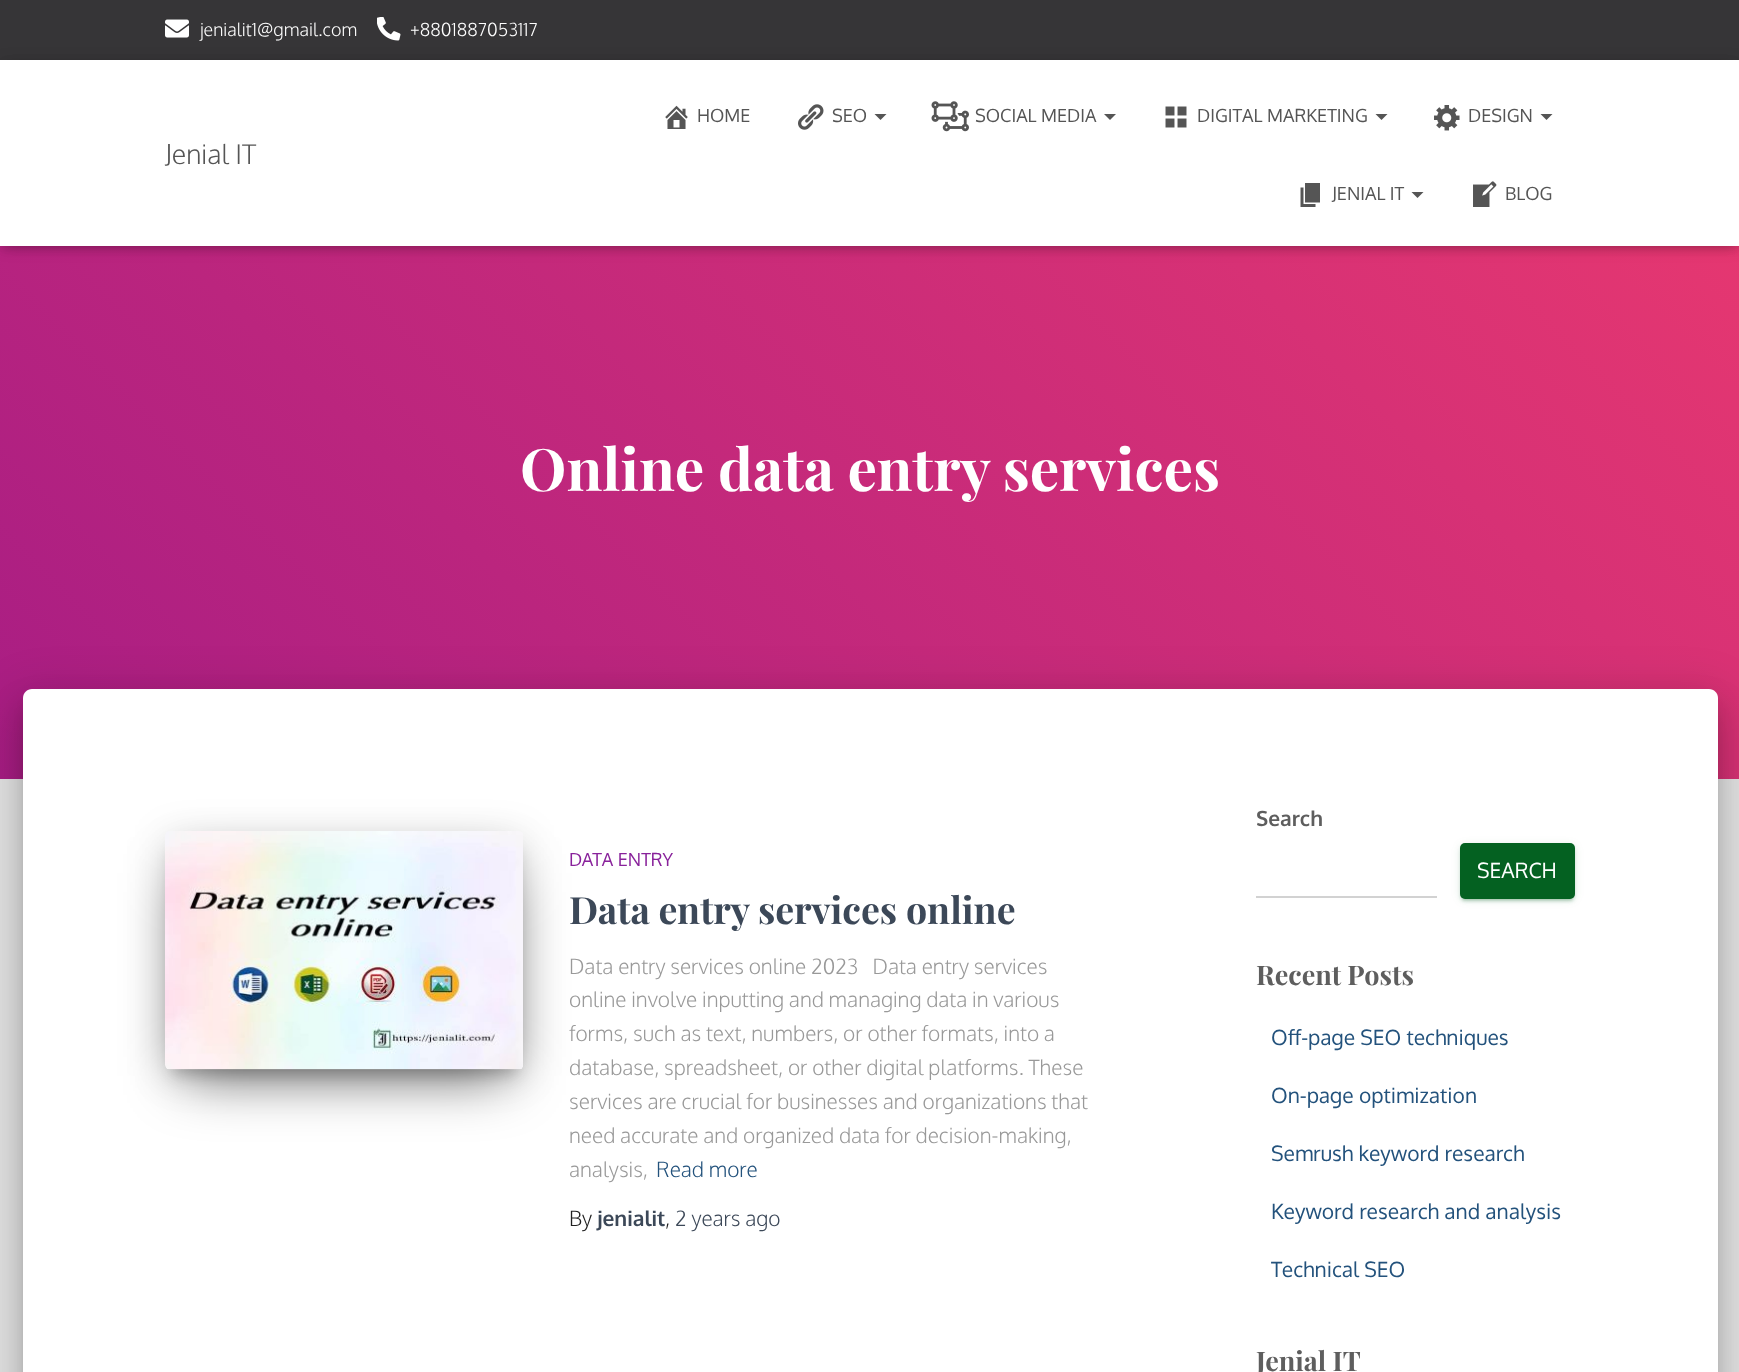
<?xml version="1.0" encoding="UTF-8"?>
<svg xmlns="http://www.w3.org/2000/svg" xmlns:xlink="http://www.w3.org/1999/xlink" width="1739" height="1372">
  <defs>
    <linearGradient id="g1" gradientUnits="userSpaceOnUse" x1="255" y1="1034" x2="1485" y2="-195"><stop offset="0" stop-color="#a81d84" /><stop offset="1" stop-color="#ea396f" /></linearGradient>
  </defs>
  <rect width="100%" height="100%" fill="#e5e5e5" />
  <rect width="1739" height="60" fill="#363537" />
  <image x="165" y="19" width="24" height="19" xlink:href="image1.png" />
  <image x="377" y="17" width="24" height="24" xlink:href="image2.png" />
  <rect y="246" width="1739" height="533" fill="url(#g1)" />
  <rect x="3" y="69" width="1734" height="180" fill="#000000" fill-opacity="0.1" filter="blur(4px)" />
  <rect y="62" width="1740" height="186" fill="#000000" fill-opacity="0.12" filter="blur(7.5px)" />
  <rect x="9" y="71" width="1722" height="168" fill="#000000" fill-opacity="0.42" filter="blur(7.5px)" />
  <rect y="60" width="1739" height="186" fill="#ffffff" />
  <image x="665" y="105" width="23" height="24" xlink:href="image3.png" />
  <image x="798" y="104" width="26" height="26" xlink:href="image4.png" />
  <path d="M 874.5 114 h 12 l -6 6 z" fill="#555555" />
  <image x="931" y="101" width="38" height="31" xlink:href="image5.png" />
  <path d="M 1104 114 h 12 l -6 6 z" fill="#555555" />
  <image x="1165" y="106" width="22" height="22" xlink:href="image6.png" />
  <path d="M 1375.5 114 h 12 l -6 6 z" fill="#555555" />
  <image x="1434" y="105" width="26" height="26" xlink:href="image7.png" />
  <path d="M 1540.5 114 h 12 l -6 6 z" fill="#555555" />
  <image x="1300" y="183" width="20" height="24" xlink:href="image8.png" />
  <path d="M 1411.5 192 h 12 l -6 6 z" fill="#555555" />
  <image x="1473" y="181" width="24" height="26" xlink:href="image9.png" />
  <rect x="30" y="708" width="1680" height="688" rx="1.5" fill="#000000" fill-opacity="0.2" filter="blur(7.5px)" />
  <rect x="15" y="690" width="1710" height="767" rx="17" fill="#000000" fill-opacity="0.12" filter="blur(22.5px)" />
  <rect x="20" y="710" width="1701" height="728" rx="12" fill="#000000" fill-opacity="0.14" filter="blur(18px)" />
  <path d="M 32 689 h 1677 c 5 0 9 4 9 9 v 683 h -1695 v -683 c 0 -5 4 -9 9 -9 z" fill="#ffffff" />
  <rect x="173" y="851" width="343" height="223" fill="#000000" fill-opacity="0.2" filter="blur(7.5px)" />
  <rect x="165" y="837" width="359" height="239" rx="5" fill="#000000" fill-opacity="0.12" filter="blur(19px)" />
  <rect x="183" y="873" width="323" height="203" fill="#000000" fill-opacity="0.56" filter="blur(28.5px)" />
  <image x="165" y="831" width="358" height="239" xlink:href="image10.png" />
  <rect x="1460" y="845" width="115" height="55" rx="5" fill="#046121" fill-opacity="0.12" filter="blur(4px)" />
  <rect x="1463" y="851" width="109" height="49" rx="1.5" fill="#046121" fill-opacity="0.2" filter="blur(1px)" />
  <rect x="1460" y="846" width="115" height="56" rx="5" fill="#046121" fill-opacity="0.14" filter="blur(1.5px)" />
  <rect x="1460" y="843" width="115" height="56" rx="5" fill="#046121" />
  <rect x="1256" y="896" width="181" height="2" fill="#d2d2d2" />
  <text x="200" y="36" style="font-family: Oxygen; font-size: 18px; font-weight: 300; fill: #ffffff">jenialit1@gmail.com</text>
  <text x="410" y="36" style="font-family: Oxygen; font-size: 18px; font-weight: 300; fill: #ffffff">+8801887053117</text>
  <text x="165" y="164" style="font-family: Oxygen; font-size: 27px; font-weight: 300; fill: #555555">Jenial IT</text>
  <text x="697" y="122" style="font-family: Oxygen; font-size: 18px; fill: #555555">HOME</text>
  <text x="832" y="122" style="font-family: Oxygen; font-size: 18px; fill: #555555">SEO</text>
  <text x="975" y="122" style="font-family: Oxygen; font-size: 18px; fill: #555555">SOCIAL MEDIA</text>
  <text x="1197" y="122" style="font-family: Oxygen; font-size: 18px; fill: #555555">DIGITAL MARKETING</text>
  <text x="1468" y="122" style="font-family: Oxygen; font-size: 18px; fill: #555555">DESIGN</text>
  <text x="1332" y="200" style="font-family: Oxygen; font-size: 18px; fill: #555555">JENIAL IT</text>
  <text x="1505" y="200" style="font-family: Oxygen; font-size: 18px; fill: #555555">BLOG</text>
  <text x="520" y="491" style="font-family: Playfair Display; font-size: 58.5px; font-weight: bold; fill: #ffffff">Online data entry services</text>
  <text x="569" y="866" style="font-family: Oxygen; font-size: 18px; fill: #89229b">DATA ENTRY</text>
  <text x="569" y="924" style="font-family: Playfair Display; font-size: 37.5px; font-weight: bold; fill: #3c4858">Data entry services online</text>
  <text x="569" y="974" style="font-family: Oxygen; font-size: 21px; font-weight: 300; fill: #999999" xml:space="preserve">Data entry services online 2023   Data entry services</text>
  <text x="569" y="1007" style="font-family: Oxygen; font-size: 21px; font-weight: 300; fill: #999999">online involve inputting and managing data in various</text>
  <text x="569" y="1041" style="font-family: Oxygen; font-size: 21px; font-weight: 300; fill: #999999">forms, such as text, numbers, or other formats, into a</text>
  <text x="569" y="1075" style="font-family: Oxygen; font-size: 21px; font-weight: 300; fill: #999999">database, spreadsheet, or other digital platforms. These</text>
  <text x="569" y="1109" style="font-family: Oxygen; font-size: 21px; font-weight: 300; fill: #999999">services are crucial for businesses and organizations that</text>
  <text x="569" y="1143" style="font-family: Oxygen; font-size: 21px; font-weight: 300; fill: #999999">need accurate and organized data for decision-making,</text>
  <text x="569" y="1177" style="font-family: Oxygen; font-size: 21px; font-weight: 300; fill: #999999">analysis,</text>
  <text x="656" y="1177" style="font-family: Oxygen; font-size: 21px; font-weight: 300; fill: #23527c">Read more</text>
  <text x="569" y="1226" style="font-family: Oxygen; font-size: 21px; font-weight: 300; fill: #212121">By</text>
  <text x="597" y="1226" style="font-family: Oxygen; font-size: 21px; font-weight: bold; fill: #3c4858">jenialit</text>
  <text x="665" y="1226" style="font-family: Oxygen; font-size: 21px; font-weight: 300; fill: #212121">,</text>
  <text x="675" y="1226" style="font-family: Oxygen; font-size: 21px; font-weight: 300; fill: #3c4858">2 years ago</text>
  <text x="1256" y="826" style="font-family: Oxygen; font-size: 21px; font-weight: bold; fill: #5e5e5e">Search</text>
  <text x="1477" y="878" style="font-family: Oxygen; font-size: 21px; fill: #ffffff">SEARCH</text>
  <text x="1256" y="985" style="font-family: Playfair Display; font-size: 27px; font-weight: bold; fill: #5e5e5e">Recent Posts</text>
  <text x="1271" y="1045" style="font-family: Oxygen; font-size: 21px; fill: #23527c">Off-page SEO techniques</text>
  <text x="1271" y="1103" style="font-family: Oxygen; font-size: 21px; fill: #23527c">On-page optimization</text>
  <text x="1271" y="1161" style="font-family: Oxygen; font-size: 21px; fill: #23527c">Semrush keyword research</text>
  <text x="1271" y="1219" style="font-family: Oxygen; font-size: 21px; fill: #23527c">Keyword research and analysis</text>
  <text x="1271" y="1277" style="font-family: Oxygen; font-size: 21px; fill: #23527c">Technical SEO</text>
  <text x="1256" y="1371" style="font-family: Playfair Display; font-size: 27px; font-weight: bold; fill: #5e5e5e">Jenial IT</text>
</svg>
